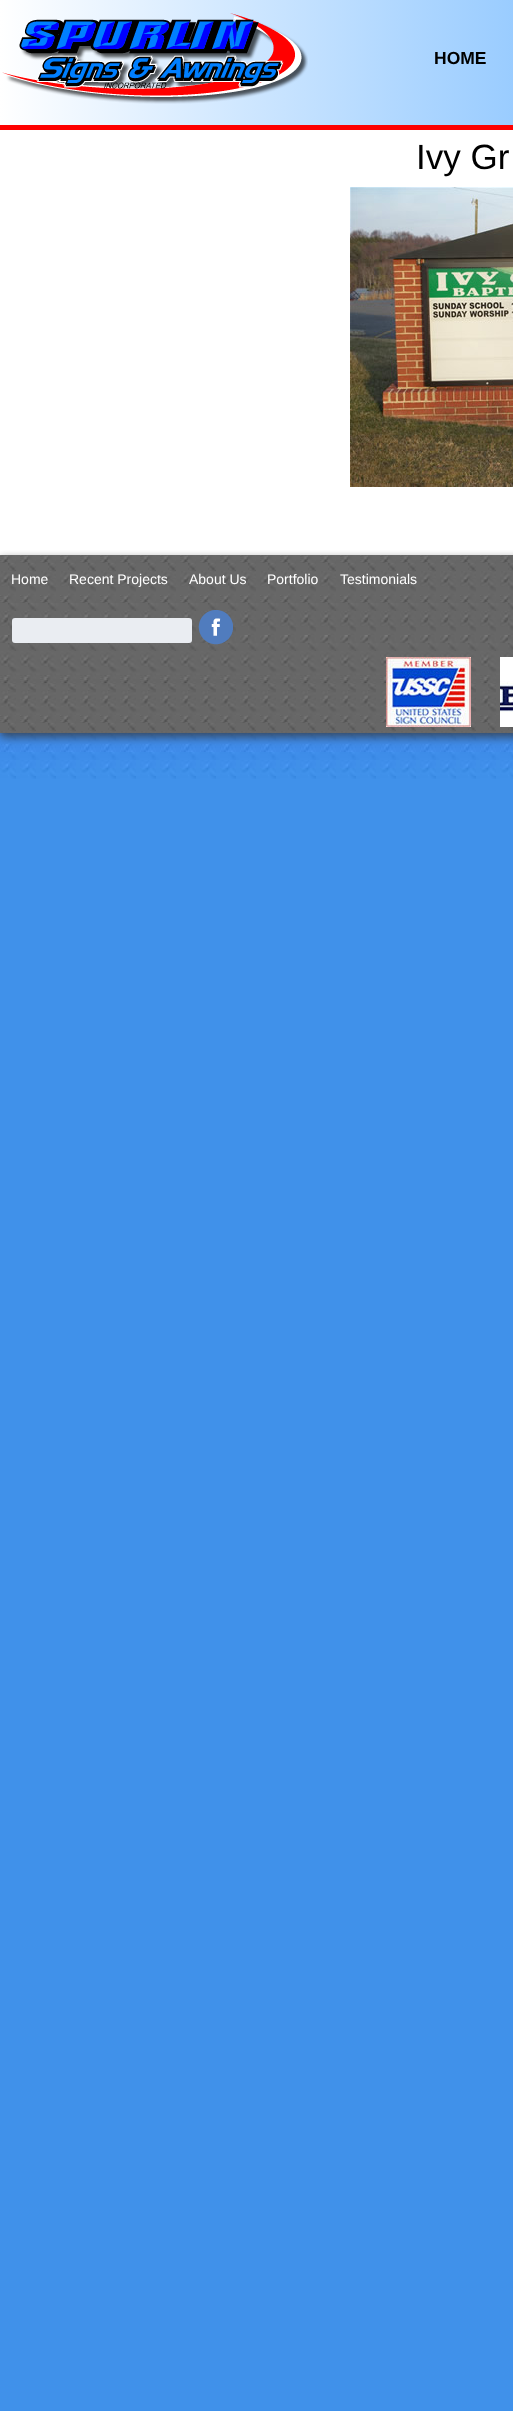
<?xml version="1.0" encoding="UTF-8"?>
<svg xmlns="http://www.w3.org/2000/svg" xmlns:xlink="http://www.w3.org/1999/xlink" width="513" height="2411">
  <defs>
    <linearGradient id="g1" gradientUnits="userSpaceOnUse" x1="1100" y1="63" x2="0" y2="62"><stop offset="0" stop-color="#2692ff" /><stop offset="1" stop-color="#ffffff" /></linearGradient>
  </defs>
  <rect width="100%" height="100%" fill="#4091ea" />
  <image x="0" y="733" width="513" height="46" xlink:href="image1.png" />
  <rect width="513" height="125" fill="url(#g1)" />
  <rect y="125" width="513" height="5" fill="#fe0000" />
  <image x="2" y="13" width="306" height="91" xlink:href="image2.png" />
  <rect y="550" width="513" height="5" fill="#ffffff" />
  <rect y="559" width="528" height="178" fill="#323232" fill-opacity="0.75" filter="blur(5px)" />
  <rect y="130" width="513" height="420" fill="#ffffff" />
  <image x="350" y="187" width="163" height="300" xlink:href="image3.png" />
  <image x="0" y="555" width="513" height="178" xlink:href="image4.png" />
  <rect x="12" y="618" width="180" height="25" rx="3" fill="#eaedf2" />
  <image x="198" y="610" width="35" height="35" xlink:href="image5.png" />
  <image x="386" y="657" width="85" height="70" xlink:href="image6.png" />
  <image x="500" y="657" width="13" height="70" xlink:href="image7.png" />
  <text x="434" y="64" style="font-family: Liberation Sans; font-size: 17.5px; font-weight: bold; fill: #000000">HOME</text>
  <text x="416" y="169" style="font-family: Liberation Sans; font-size: 35px; fill: #000000">Ivy Gr</text>
  <text x="11" y="584" style="font-family: Liberation Sans; font-size: 14px; fill: #ffffff">Home</text>
  <text x="69" y="584" style="font-family: Liberation Sans; font-size: 14px; fill: #ffffff">Recent Projects</text>
  <text x="189" y="584" style="font-family: Liberation Sans; font-size: 14px; fill: #ffffff">About Us</text>
  <text x="267" y="584" style="font-family: Liberation Sans; font-size: 14px; fill: #ffffff">Portfolio</text>
  <text x="340" y="584" style="font-family: Liberation Sans; font-size: 14px; fill: #ffffff">Testimonials</text>
</svg>
